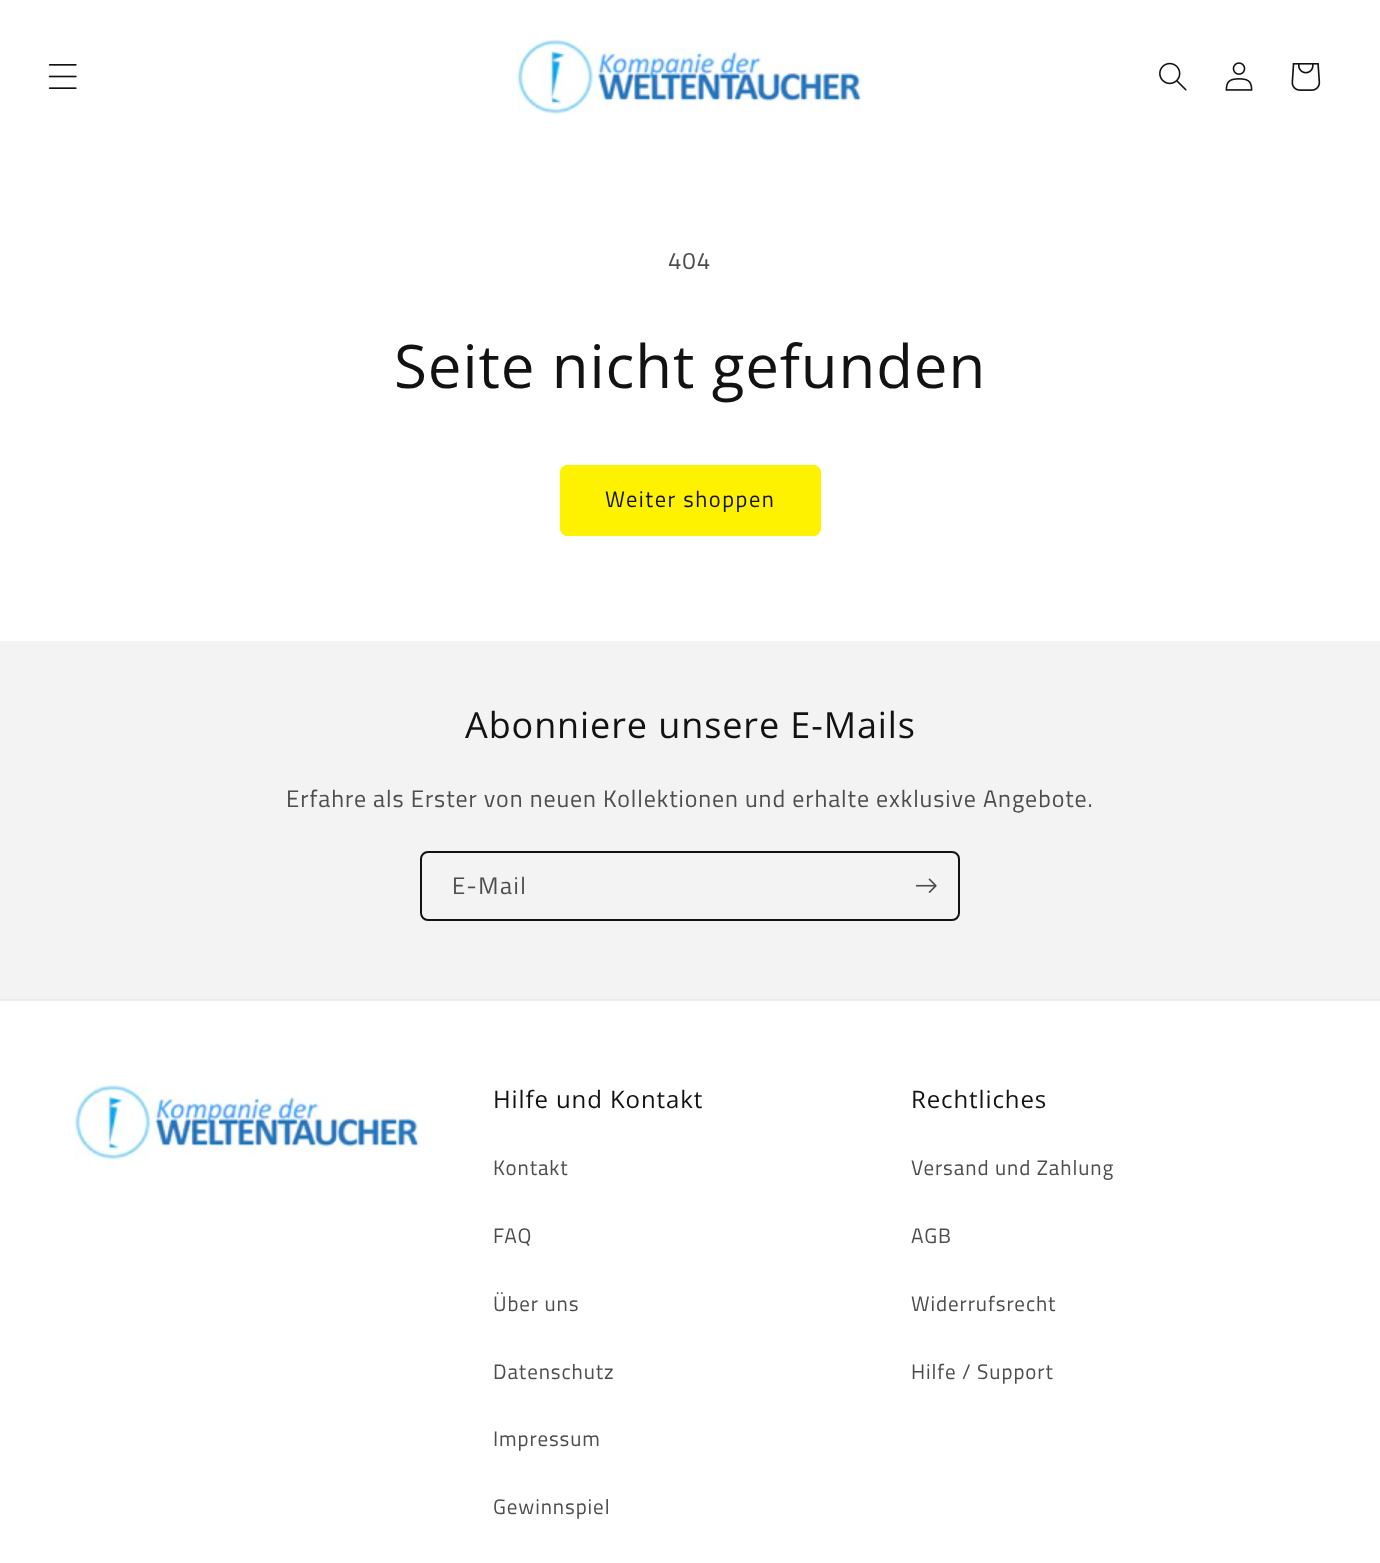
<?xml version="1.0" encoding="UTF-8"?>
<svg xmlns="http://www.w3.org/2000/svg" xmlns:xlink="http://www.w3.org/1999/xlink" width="1380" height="1563">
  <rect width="100%" height="100%" fill="#ffffff" />
  <image x="48" y="64" width="29" height="25" xlink:href="image1.png" />
  <image x="517" y="39" width="345" height="75" xlink:href="image2.png" />
  <image x="1159" y="62" width="28" height="29" xlink:href="image3.png" />
  <image x="1225" y="62" width="28" height="29" xlink:href="image4.png" />
  <image x="1291" y="63" width="30" height="28" xlink:href="image5.png" />
  <rect x="560" y="465" width="261" height="71" rx="8" fill="#fff200" />
  <rect x="561" y="466" width="259" height="69" rx="7" fill="none" stroke="#fff200" stroke-width="2" />
  <rect y="641" width="1380" height="358" fill="#f3f3f3" />
  <rect x="421" y="852" width="538" height="68" rx="7" fill="none" stroke="#121212" stroke-width="2" />
  <image x="915" y="878" width="22" height="15" xlink:href="image6.png" />
  <rect y="999" width="1380" height="2" fill="#ececec" />
  <image x="75" y="1084" width="345" height="76" xlink:href="image7.png" />
  <text x="668" y="269" style="font-family: Titillium Web; font-size: 24px; letter-spacing: 0.9px; fill: #4d4d4d">404</text>
  <text x="394" y="388" style="font-family: Open Sans; font-size: 60px; letter-spacing: 0.9px; fill: #121212">Seite nicht gefunden</text>
  <text x="605" y="507" style="font-family: Titillium Web; font-size: 22.5px; letter-spacing: 1.5px; fill: #121212">Weiter shoppen</text>
  <text x="465" y="738" style="font-family: Open Sans; font-size: 36px; letter-spacing: 0.9px; fill: #121212">Abonniere unsere E-Mails</text>
  <text x="286" y="807" style="font-family: Titillium Web; font-size: 24px; letter-spacing: 0.9px; fill: #4d4d4d">Erfahre als Erster von neuen Kollektionen und erhalte exklusive Angebote.</text>
  <text x="452" y="894" style="font-family: Titillium Web; font-size: 24px; letter-spacing: 1.5px; fill: #4d4d4d">E-Mail</text>
  <text x="493" y="1108" style="font-family: Open Sans; font-size: 24px; letter-spacing: 0.9px; fill: #121212">Hilfe und Kontakt</text>
  <text x="493" y="1175" style="font-family: Titillium Web; font-size: 21px; letter-spacing: 0.9px; fill: #4d4d4d">Kontakt</text>
  <text x="493" y="1243" style="font-family: Titillium Web; font-size: 21px; letter-spacing: 0.9px; fill: #4d4d4d">FAQ</text>
  <text x="493" y="1311" style="font-family: Titillium Web; font-size: 21px; letter-spacing: 0.9px; fill: #4d4d4d">Über uns</text>
  <text x="493" y="1379" style="font-family: Titillium Web; font-size: 21px; letter-spacing: 0.9px; fill: #4d4d4d">Datenschutz</text>
  <text x="493" y="1446" style="font-family: Titillium Web; font-size: 21px; letter-spacing: 0.9px; fill: #4d4d4d">Impressum</text>
  <text x="493" y="1514" style="font-family: Titillium Web; font-size: 21px; letter-spacing: 0.9px; fill: #4d4d4d">Gewinnspiel</text>
  <text x="911" y="1108" style="font-family: Open Sans; font-size: 24px; letter-spacing: 0.9px; fill: #121212">Rechtliches</text>
  <text x="911" y="1175" style="font-family: Titillium Web; font-size: 21px; letter-spacing: 0.9px; fill: #4d4d4d">Versand und Zahlung</text>
  <text x="911" y="1243" style="font-family: Titillium Web; font-size: 21px; letter-spacing: 0.9px; fill: #4d4d4d">AGB</text>
  <text x="911" y="1311" style="font-family: Titillium Web; font-size: 21px; letter-spacing: 0.9px; fill: #4d4d4d">Widerrufsrecht</text>
  <text x="911" y="1379" style="font-family: Titillium Web; font-size: 21px; letter-spacing: 0.9px; fill: #4d4d4d">Hilfe / Support</text>
</svg>
